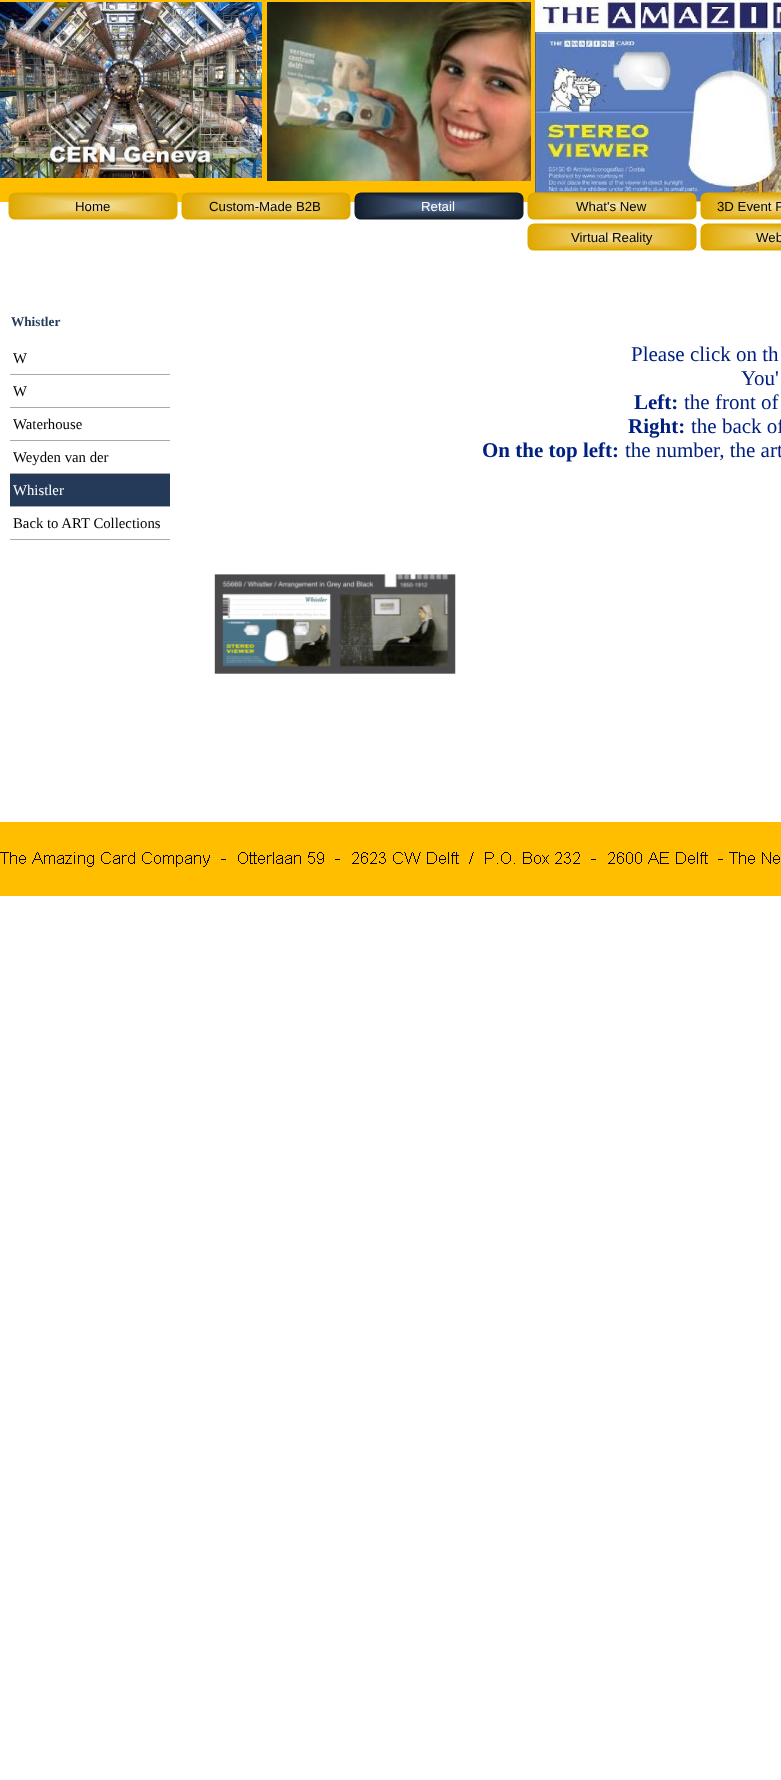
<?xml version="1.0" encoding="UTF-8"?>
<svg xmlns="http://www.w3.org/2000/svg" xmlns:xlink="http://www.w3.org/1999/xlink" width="781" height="1780">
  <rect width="100%" height="100%" fill="#ffffff" />
  <rect width="701" height="202" fill="#ffbf00" />
  <image x="0" y="2" width="262" height="176" xlink:href="image1.png" />
  <image x="267" y="2" width="264" height="179" xlink:href="image2.png" />
  <image x="535" y="0" width="246" height="201" xlink:href="image3.png" />
  <image x="8" y="192" width="170" height="28" xlink:href="image4.png" />
  <image x="181" y="192" width="170" height="28" xlink:href="image4.png" />
  <image x="354" y="192" width="170" height="28" xlink:href="image5.png" />
  <image x="527" y="192" width="170" height="28" xlink:href="image6.png" />
  <image x="700" y="192" width="81" height="28" xlink:href="image7.png" />
  <image x="527" y="223" width="170" height="28" xlink:href="image8.png" />
  <image x="700" y="223" width="81" height="28" xlink:href="image9.png" />
  <rect x="10" y="374" width="160" height="1" fill="#a9a9a9" />
  <rect x="10" y="407" width="160" height="1" fill="#a9a9a9" />
  <rect x="10" y="440" width="160" height="1" fill="#a9a9a9" />
  <rect x="10" y="473" width="160" height="1" fill="#a9a9a9" />
  <rect x="10" y="474" width="160" height="32" fill="#253a58" />
  <rect x="10" y="506" width="160" height="1" fill="#a9a9a9" />
  <rect x="10" y="539" width="160" height="1" fill="#a9a9a9" />
  <image x="214" y="574" width="242" height="100" xlink:href="image10.png" />
  <rect y="822" width="781" height="74" fill="#ffbf00" />
  <image x="0" y="852" width="780" height="15" xlink:href="image11.png" />
  <text x="75" y="211" style="font-family: Liberation Sans; font-size: 13.25px; fill: #000000">Home</text>
  <text x="209" y="211" style="font-family: Liberation Sans; font-size: 13.25px; fill: #000000">Custom-Made B2B</text>
  <text x="421" y="211" style="font-family: Liberation Sans; font-size: 13.25px; fill: #ffffff">Retail</text>
  <text x="576" y="211" style="font-family: Liberation Sans; font-size: 13.25px; fill: #000000">What's New</text>
  <text x="717" y="211" style="font-family: Liberation Sans; font-size: 13.25px; fill: #000000">3D Event P</text>
  <text x="571" y="242" style="font-family: Liberation Sans; font-size: 13.25px; fill: #000000">Virtual Reality</text>
  <text x="756" y="242" style="font-family: Liberation Sans; font-size: 13.25px; fill: #000000">Web</text>
  <text x="11" y="326" style="font-family: Liberation Serif; font-size: 13.25px; font-weight: bold; fill: #253a58">Whistler</text>
  <text x="13" y="363" style="font-family: Liberation Serif; font-size: 14.75px; fill: #000000">W</text>
  <text x="13" y="396" style="font-family: Liberation Serif; font-size: 14.75px; fill: #000000">W</text>
  <text x="13" y="429" style="font-family: Liberation Serif; font-size: 14.75px; fill: #000000">Waterhouse</text>
  <text x="13" y="462" style="font-family: Liberation Serif; font-size: 14.75px; fill: #000000">Weyden van der</text>
  <text x="13" y="495" style="font-family: Liberation Serif; font-size: 14.75px; fill: #ffffff">Whistler</text>
  <text x="13" y="528" style="font-family: Liberation Serif; font-size: 14.75px; fill: #000000">Back to ART Collections</text>
  <text x="631" y="361" style="font-family: Liberation Serif; font-size: 21px; fill: #002080">Please click on th</text>
  <text x="741" y="385" style="font-family: Liberation Serif; font-size: 21px; fill: #002080">You'</text>
  <text x="634" y="409" style="font-family: Liberation Serif; font-size: 21px; font-weight: bold; fill: #002080">Left:</text>
  <text x="684" y="409" style="font-family: Liberation Serif; font-size: 21px; fill: #002080">the front of</text>
  <text x="628" y="433" style="font-family: Liberation Serif; font-size: 21px; font-weight: bold; fill: #002080">Right:</text>
  <text x="691" y="433" style="font-family: Liberation Serif; font-size: 21px; fill: #002080">the back of</text>
  <text x="482" y="457" style="font-family: Liberation Serif; font-size: 21px; font-weight: bold; fill: #002080">On the top left:</text>
  <text x="625" y="457" style="font-family: Liberation Serif; font-size: 21px; fill: #002080">the number, the art</text>
</svg>
